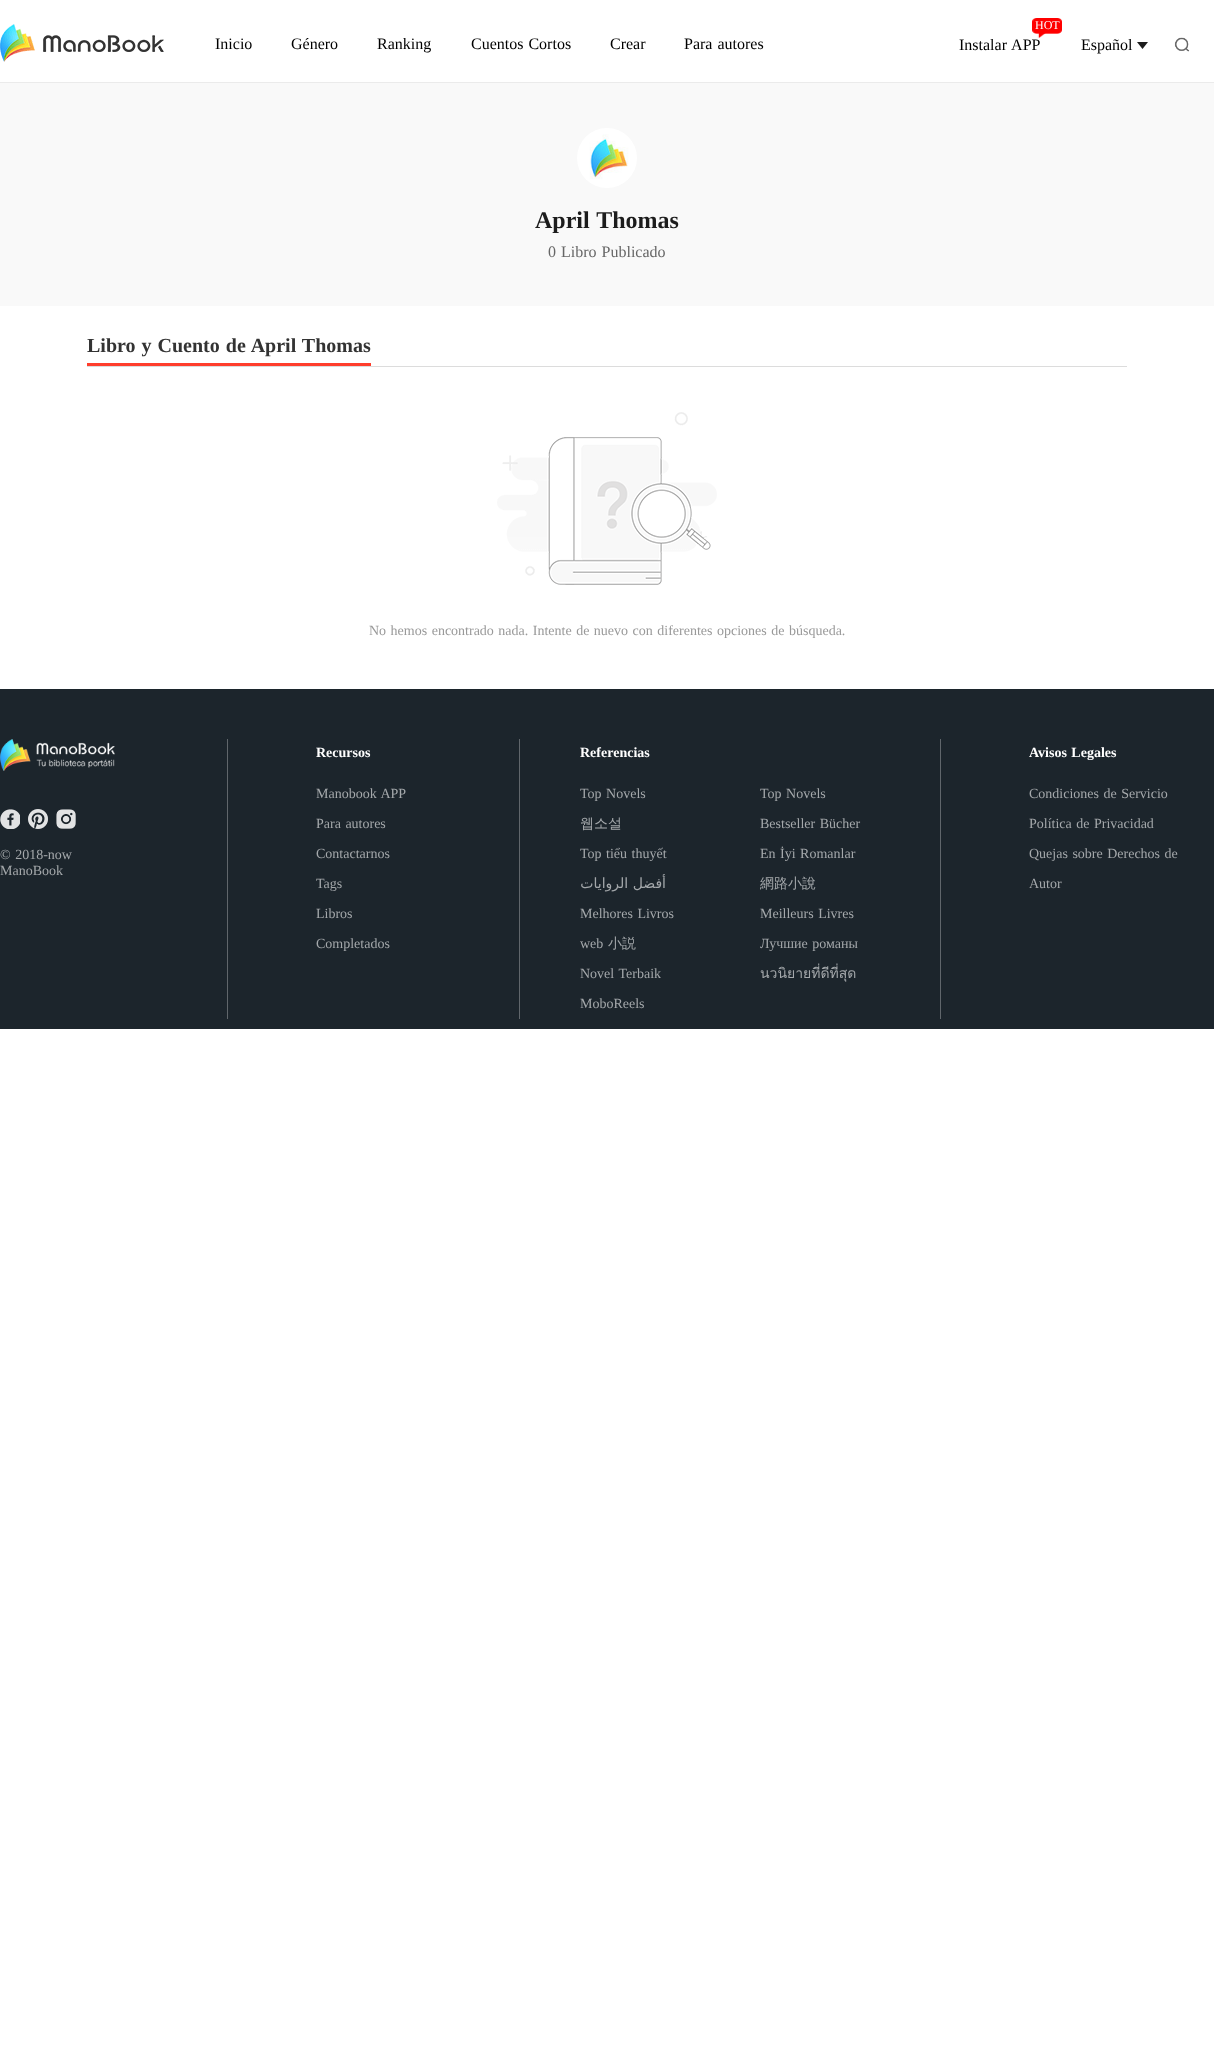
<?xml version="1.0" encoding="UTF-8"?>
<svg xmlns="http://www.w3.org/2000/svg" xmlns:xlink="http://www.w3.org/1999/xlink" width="1214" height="2066">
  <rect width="100%" height="100%" fill="#ffffff" />
  <rect y="82" width="1214" height="1" fill="#ebebeb" />
  <image x="0" y="24" width="164" height="38" xlink:href="image1.png" />
  <image x="1032" y="18" width="30" height="20" xlink:href="image2.png" />
  <image x="1137" y="42" width="11" height="7" xlink:href="image3.png" />
  <image x="1174" y="37" width="16" height="15" xlink:href="image4.png" />
  <rect y="83" width="1214" height="223" fill="#f9f9f9" />
  <image x="577" y="128" width="60" height="60" xlink:href="image5.png" />
  <rect x="87" y="366" width="1040" height="1" fill="#dcdcdc" />
  <rect x="87" y="363" width="284" height="3" fill="#ff3d2c" />
  <image x="497" y="412" width="220" height="173" xlink:href="image6.png" />
  <rect y="689" width="1214" height="340" fill="#1c252c" />
  <rect x="227" y="739" width="1" height="280" fill="#60666b" />
  <image x="0" y="739" width="115" height="32" xlink:href="image7.png" />
  <image x="0" y="809" width="20" height="20" xlink:href="image8.png" />
  <image x="28" y="809" width="20" height="20" xlink:href="image9.png" />
  <image x="56" y="809" width="20" height="20" xlink:href="image10.png" />
  <rect x="519" y="739" width="1" height="280" fill="#60666b" />
  <rect x="940" y="739" width="1" height="280" fill="#60666b" />
  <text x="215" y="49" style="font-family: Liberation Serif; font-size: 16px; fill: #000000">Inicio</text>
  <text x="291" y="49" style="font-family: Liberation Serif; font-size: 16px; fill: #000000">Género</text>
  <text x="377" y="49" style="font-family: Liberation Serif; font-size: 16px; fill: #000000">Ranking</text>
  <text x="471" y="49" word-spacing="1" style="font-family: Liberation Serif; font-size: 16px; fill: #000000">Cuentos Cortos</text>
  <text x="610" y="49" style="font-family: Liberation Serif; font-size: 16px; fill: #000000">Crear</text>
  <text x="684" y="49" word-spacing="1" style="font-family: Liberation Serif; font-size: 16px; fill: #000000">Para autores</text>
  <text x="1035" y="29" style="font-family: Liberation Serif; font-size: 12px; fill: #ffffff">HOT</text>
  <text x="959" y="50" word-spacing="1" style="font-family: Liberation Serif; font-size: 16px; fill: #000000">Instalar APP</text>
  <text x="1081" y="50" style="font-family: Liberation Serif; font-size: 16px; fill: #000000">Español</text>
  <text x="535" y="228" word-spacing="1" style="font-family: Liberation Serif; font-size: 24px; font-weight: bold; fill: #1c1c1c">April Thomas</text>
  <text x="548" y="257" word-spacing="1" style="font-family: Liberation Serif; font-size: 16px; fill: #666666">0 Libro Publicado</text>
  <text x="87" y="352" word-spacing="1" style="font-family: Liberation Serif; font-size: 20px; font-weight: bold; fill: #333333">Libro y Cuento de April Thomas</text>
  <text x="369" y="635" word-spacing="1" style="font-family: Liberation Serif; font-size: 14px; fill: #999999">No hemos encontrado nada. Intente de nuevo con diferentes opciones de búsqueda.</text>
  <text x="0" y="859" word-spacing="1" style="font-family: Liberation Serif; font-size: 14px; fill: #a4a8ab">© 2018-now</text>
  <text x="0" y="875" style="font-family: Liberation Serif; font-size: 14px; fill: #a4a8ab">ManoBook</text>
  <text x="316" y="757" style="font-family: Liberation Serif; font-size: 14px; font-weight: bold; fill: #ffffff">Recursos</text>
  <text x="316" y="798" word-spacing="1" style="font-family: Liberation Serif; font-size: 14px; fill: #a4a8ab">Manobook APP</text>
  <text x="316" y="828" word-spacing="1" style="font-family: Liberation Serif; font-size: 14px; fill: #a4a8ab">Para autores</text>
  <text x="316" y="858" style="font-family: Liberation Serif; font-size: 14px; fill: #a4a8ab">Contactarnos</text>
  <text x="316" y="888" style="font-family: Liberation Serif; font-size: 14px; fill: #a4a8ab">Tags</text>
  <text x="316" y="918" style="font-family: Liberation Serif; font-size: 14px; fill: #a4a8ab">Libros</text>
  <text x="316" y="948" style="font-family: Liberation Serif; font-size: 14px; fill: #a4a8ab">Completados</text>
  <text x="580" y="757" style="font-family: Liberation Serif; font-size: 14px; font-weight: bold; fill: #ffffff">Referencias</text>
  <text x="580" y="798" word-spacing="1" style="font-family: Liberation Serif; font-size: 14px; fill: #a4a8ab">Top Novels</text>
  <text x="760" y="798" word-spacing="1" style="font-family: Liberation Serif; font-size: 14px; fill: #a4a8ab">Top Novels</text>
  <text x="580" y="828" style="font-family: WenQuanYi Zen Hei; font-size: 14px; font-weight: 500; fill: #a4a8ab">웹소설</text>
  <text x="760" y="828" word-spacing="1" style="font-family: Liberation Serif; font-size: 14px; fill: #a4a8ab">Bestseller Bücher</text>
  <text x="580" y="858" word-spacing="1" style="font-family: Liberation Serif; font-size: 14px; fill: #a4a8ab">Top tiểu thuyết</text>
  <text x="760" y="858" word-spacing="1" style="font-family: Liberation Serif; font-size: 14px; fill: #a4a8ab">En İyi Romanlar</text>
  <text x="666" y="888" style="font-family: DejaVu Sans; font-size: 14px; direction: rtl; fill: #a4a8ab">أفضل الروايات</text>
  <text x="760" y="888" style="font-family: WenQuanYi Zen Hei; font-size: 14px; font-weight: 500; fill: #a4a8ab">網路小說</text>
  <text x="580" y="918" word-spacing="1" style="font-family: Liberation Serif; font-size: 14px; fill: #a4a8ab">Melhores Livros</text>
  <text x="760" y="918" word-spacing="1" style="font-family: Liberation Serif; font-size: 14px; fill: #a4a8ab">Meilleurs Livres</text>
  <text x="580" y="948" style="font-family: Liberation Serif; font-size: 14px; fill: #a4a8ab">web</text>
  <text x="608" y="948" style="font-family: WenQuanYi Zen Hei; font-size: 14px; font-weight: 500; fill: #a4a8ab">小説</text>
  <text x="760" y="948" word-spacing="1" style="font-family: Liberation Serif; font-size: 14px; fill: #a4a8ab">Лучшие романы</text>
  <text x="580" y="978" word-spacing="1" style="font-family: Liberation Serif; font-size: 14px; fill: #a4a8ab">Novel Terbaik</text>
  <text x="760" y="978" style="font-family: Loma; font-size: 14px; fill: #a4a8ab">นวนิยายที่ดีที่สุด</text>
  <text x="580" y="1008" style="font-family: Liberation Serif; font-size: 14px; fill: #a4a8ab">MoboReels</text>
  <text x="1029" y="757" word-spacing="1" style="font-family: Liberation Serif; font-size: 14px; font-weight: bold; fill: #ffffff">Avisos Legales</text>
  <text x="1029" y="798" word-spacing="1" style="font-family: Liberation Serif; font-size: 14px; fill: #a4a8ab">Condiciones de Servicio</text>
  <text x="1029" y="828" word-spacing="1" style="font-family: Liberation Serif; font-size: 14px; fill: #a4a8ab">Política de Privacidad</text>
  <text x="1029" y="858" word-spacing="1" style="font-family: Liberation Serif; font-size: 14px; fill: #a4a8ab">Quejas sobre Derechos de</text>
  <text x="1029" y="888" style="font-family: Liberation Serif; font-size: 14px; fill: #a4a8ab">Autor</text>
</svg>
